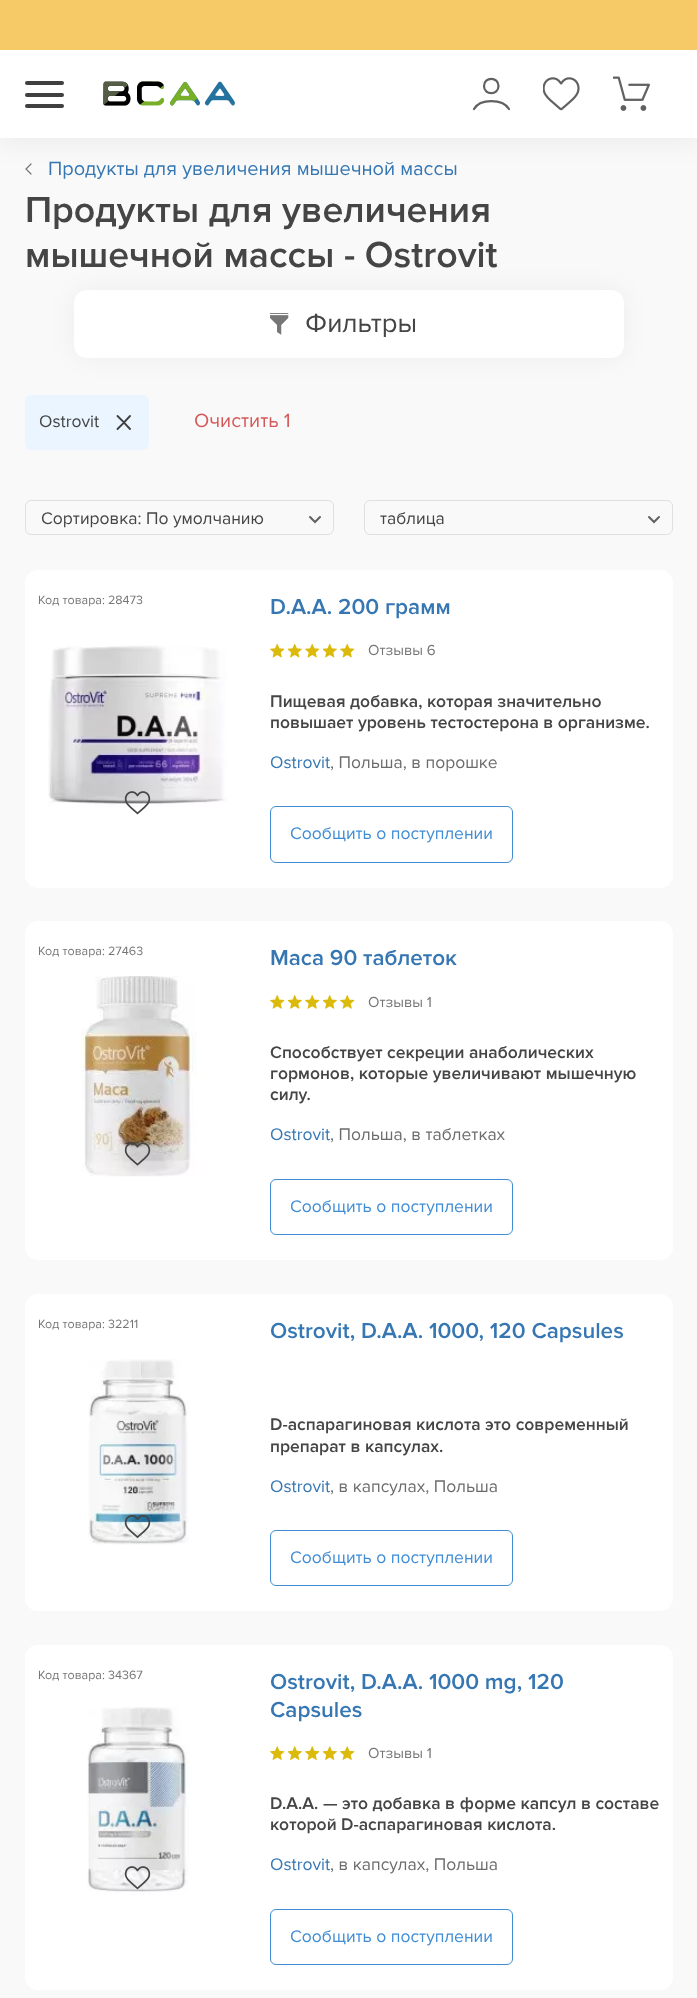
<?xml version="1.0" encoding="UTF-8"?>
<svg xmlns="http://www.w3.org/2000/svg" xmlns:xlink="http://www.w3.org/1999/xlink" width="697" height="1998">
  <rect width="100%" height="100%" fill="#f9f9f9" />
  <path d="M 31 164 l -5 5 l 5 5" fill="none" stroke="#767676" stroke-width="1.2" stroke-linecap="round" />
  <rect y="6" width="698" height="138" fill="#000000" fill-opacity="0.05" filter="blur(12.5px)" />
  <rect y="50" width="697" height="88" fill="#ffffff" />
  <rect width="697" height="50" fill="#f7ca68" />
  <rect x="25" y="81" width="39" height="4" rx="2" fill="#404040" />
  <rect x="25" y="93" width="39" height="4" rx="2" fill="#404040" />
  <rect x="25" y="104" width="39" height="4" rx="2" fill="#404040" />
  <image x="103" y="81" width="132" height="25" xlink:href="image1.png" />
  <path d="M 474 109 c 6 -10.5 28.5 -10.5 35 0 m -10.5 -23 c 0 9.5 -14.5 9.5 -14.5 0 c 0 -9.5 14.5 -9.5 14.5 0 z" fill="none" stroke="#616161" stroke-width="2.2" stroke-linecap="round" />
  <image x="543" y="77" width="37" height="34" xlink:href="image2.png" />
  <image x="613" y="76" width="37" height="35" xlink:href="image3.png" />
  <rect x="74" y="290" width="550" height="68" rx="13" fill="#000000" fill-opacity="0.05" filter="blur(12.5px)" />
  <rect x="74" y="290" width="550" height="68" rx="13" fill="#ffffff" />
  <image x="270" y="313" width="19" height="22" xlink:href="image4.png" />
  <rect x="25" y="395" width="124" height="55" rx="6" fill="#eaf5ff" />
  <path d="M 130 429 l -6 -6.5 l -6.5 6.5 m 0 -13 l 6.5 6.5 l 6 -6.5" fill="none" stroke="#404040" stroke-width="1.9" stroke-linecap="round" />
  <rect x="25.5" y="500.5" width="308" height="34" rx="5.5" fill="none" stroke="#e0e0e0" />
  <path d="M 310 517 l 5 5 l 5 -5" fill="none" stroke="#616161" stroke-width="2" stroke-linecap="round" />
  <rect x="364.5" y="500.5" width="308" height="34" rx="5.5" fill="none" stroke="#e0e0e0" />
  <path d="M 649 517 l 5 5 l 5 -5" fill="none" stroke="#616161" stroke-width="2" stroke-linecap="round" />
  <rect x="25" y="570" width="648" height="318" rx="13" fill="#ffffff" />
  <image x="48" y="645" width="179" height="162" xlink:href="image5.png" />
  <image x="124" y="791" width="27" height="24" xlink:href="image6.png" />
  <image x="270" y="644" width="15" height="14" xlink:href="image7.png" />
  <image x="288" y="644" width="14" height="14" xlink:href="image8.png" />
  <image x="305" y="644" width="15" height="14" xlink:href="image7.png" />
  <image x="323" y="644" width="14" height="14" xlink:href="image8.png" />
  <image x="340" y="644" width="15" height="14" xlink:href="image7.png" />
  <rect x="270.5" y="806.5" width="242" height="56" rx="5.5" fill="none" stroke="#408dd5" />
  <rect x="25" y="921" width="648" height="339" rx="13" fill="#ffffff" />
  <image x="78" y="976" width="119" height="201" xlink:href="image9.png" />
  <image x="124" y="1142" width="27" height="24" xlink:href="image10.png" />
  <image x="270" y="995" width="15" height="14" xlink:href="image11.png" />
  <image x="288" y="995" width="14" height="14" xlink:href="image12.png" />
  <image x="305" y="995" width="15" height="14" xlink:href="image11.png" />
  <image x="323" y="995" width="14" height="14" xlink:href="image12.png" />
  <image x="340" y="995" width="15" height="14" xlink:href="image11.png" />
  <rect x="270.5" y="1179.5" width="242" height="55" rx="5.5" fill="none" stroke="#408dd5" />
  <rect x="25" y="1294" width="648" height="317" rx="13" fill="#ffffff" />
  <image x="88" y="1359" width="101" height="186" xlink:href="image13.png" />
  <image x="124" y="1515" width="27" height="24" xlink:href="image14.png" />
  <rect x="270.5" y="1530.5" width="242" height="55" rx="5.5" fill="none" stroke="#408dd5" />
  <rect x="25" y="1645" width="648" height="345" rx="13" fill="#ffffff" />
  <image x="87" y="1707" width="102" height="188" xlink:href="image15.png" />
  <image x="124" y="1866" width="27" height="24" xlink:href="image16.png" />
  <image x="270" y="1746" width="15" height="14" xlink:href="image17.png" />
  <image x="288" y="1746" width="14" height="14" xlink:href="image18.png" />
  <image x="305" y="1746" width="15" height="14" xlink:href="image17.png" />
  <image x="323" y="1746" width="14" height="14" xlink:href="image18.png" />
  <image x="340" y="1746" width="15" height="14" xlink:href="image17.png" />
  <rect x="270.5" y="1909.5" width="242" height="55" rx="5.5" fill="none" stroke="#408dd5" />
  <text x="48" y="175" style="font-family: Proxima Nova; font-size: 20px; fill: #3677b3">Продукты для увеличения мышечной массы</text>
  <text x="25" y="222" style="font-family: Proxima Nova; font-size: 37.5px; font-weight: 600; fill: #454545">Продукты для увеличения</text>
  <text x="25" y="267" style="font-family: Proxima Nova; font-size: 37.5px; font-weight: 600; fill: #454545">мышечной массы - Ostrovit</text>
  <text x="305" y="332" style="font-family: Proxima Nova; font-size: 27.5px; fill: #454545">Фильтры</text>
  <text x="39" y="427" style="font-family: Proxima Nova; font-size: 17.5px; fill: #454545">Ostrovit</text>
  <text x="194" y="427" style="font-family: Proxima Nova; font-size: 20px; fill: #d65959">Очистить 1</text>
  <text x="41" y="524" style="font-family: Proxima Nova; font-size: 17.5px; fill: #454545">Сортировка: По умолчанию</text>
  <text x="380" y="524" style="font-family: Proxima Nova; font-size: 17.5px; fill: #454545">таблица</text>
  <text x="38" y="604" style="font-family: Proxima Nova; font-size: 12.5px; fill: #767676">Код товара: 28473</text>
  <text x="270" y="614" style="font-family: Proxima Nova; font-size: 22.5px; font-weight: 600; fill: #3677b3">D.A.A. 200 грамм</text>
  <text x="368" y="655" style="font-family: Proxima Nova; font-size: 15px; fill: #767676">Отзывы 6</text>
  <text x="270" y="707" style="font-family: Proxima Nova; font-size: 17.5px; font-weight: 600; fill: #454545">Пищевая добавка, которая значительно</text>
  <text x="270" y="728" style="font-family: Proxima Nova; font-size: 17.5px; font-weight: 600; fill: #454545">повышает уровень тестостерона в организме.</text>
  <text x="270" y="768" style="font-family: Proxima Nova; font-size: 17.5px; fill: #3677b3">Ostrovit</text>
  <text x="330" y="768" style="font-family: Proxima Nova; font-size: 17.5px; fill: #6c6c6c">, Польша, в порошке</text>
  <text x="290" y="839" style="font-family: Proxima Nova; font-size: 17.5px; fill: #408dd5">Сообщить о поступлении</text>
  <text x="38" y="955" style="font-family: Proxima Nova; font-size: 12.5px; fill: #767676">Код товара: 27463</text>
  <text x="270" y="965" style="font-family: Proxima Nova; font-size: 22.5px; font-weight: 600; fill: #3677b3">Maca 90 таблеток</text>
  <text x="368" y="1007" style="font-family: Proxima Nova; font-size: 15px; fill: #767676">Отзывы 1</text>
  <text x="270" y="1058" style="font-family: Proxima Nova; font-size: 17.5px; font-weight: 600; fill: #454545">Способствует секреции анаболических</text>
  <text x="270" y="1079" style="font-family: Proxima Nova; font-size: 17.5px; font-weight: 600; fill: #454545">гормонов, которые увеличивают мышечную</text>
  <text x="270" y="1100" style="font-family: Proxima Nova; font-size: 17.5px; font-weight: 600; fill: #454545">силу.</text>
  <text x="270" y="1140" style="font-family: Proxima Nova; font-size: 17.5px; fill: #3677b3">Ostrovit</text>
  <text x="330" y="1140" style="font-family: Proxima Nova; font-size: 17.5px; fill: #6c6c6c">, Польша, в таблетках</text>
  <text x="290" y="1212" style="font-family: Proxima Nova; font-size: 17.5px; fill: #408dd5">Сообщить о поступлении</text>
  <text x="38" y="1328" style="font-family: Proxima Nova; font-size: 12.5px; fill: #767676">Код товара: 32211</text>
  <text x="270" y="1338" style="font-family: Proxima Nova; font-size: 22.5px; font-weight: 600; fill: #3677b3">Ostrovit, D.A.A. 1000, 120 Capsules</text>
  <text x="270" y="1430" style="font-family: Proxima Nova; font-size: 17.5px; font-weight: 600; fill: #454545">D-аспарагиновая кислота это современный</text>
  <text x="270" y="1452" style="font-family: Proxima Nova; font-size: 17.5px; font-weight: 600; fill: #454545">препарат в капсулах.</text>
  <text x="270" y="1492" style="font-family: Proxima Nova; font-size: 17.5px; fill: #3677b3">Ostrovit</text>
  <text x="330" y="1492" style="font-family: Proxima Nova; font-size: 17.5px; fill: #6c6c6c">, в капсулах, Польша</text>
  <text x="290" y="1563" style="font-family: Proxima Nova; font-size: 17.5px; fill: #408dd5">Сообщить о поступлении</text>
  <text x="38" y="1679" style="font-family: Proxima Nova; font-size: 12.5px; fill: #767676">Код товара: 34367</text>
  <text x="270" y="1689" style="font-family: Proxima Nova; font-size: 22.5px; font-weight: 600; fill: #3677b3">Ostrovit, D.A.A. 1000 mg, 120</text>
  <text x="270" y="1717" style="font-family: Proxima Nova; font-size: 22.5px; font-weight: 600; fill: #3677b3">Capsules</text>
  <text x="368" y="1758" style="font-family: Proxima Nova; font-size: 15px; fill: #767676">Отзывы 1</text>
  <text x="270" y="1809" style="font-family: Proxima Nova; font-size: 17.5px; font-weight: 600; fill: #454545">D.A.A. — это добавка в форме капсул в составе</text>
  <text x="270" y="1830" style="font-family: Proxima Nova; font-size: 17.5px; font-weight: 600; fill: #454545">которой D-аспарагиновая кислота.</text>
  <text x="270" y="1870" style="font-family: Proxima Nova; font-size: 17.5px; fill: #3677b3">Ostrovit</text>
  <text x="330" y="1870" style="font-family: Proxima Nova; font-size: 17.5px; fill: #6c6c6c">, в капсулах, Польша</text>
  <text x="290" y="1942" style="font-family: Proxima Nova; font-size: 17.5px; fill: #408dd5">Сообщить о поступлении</text>
</svg>
